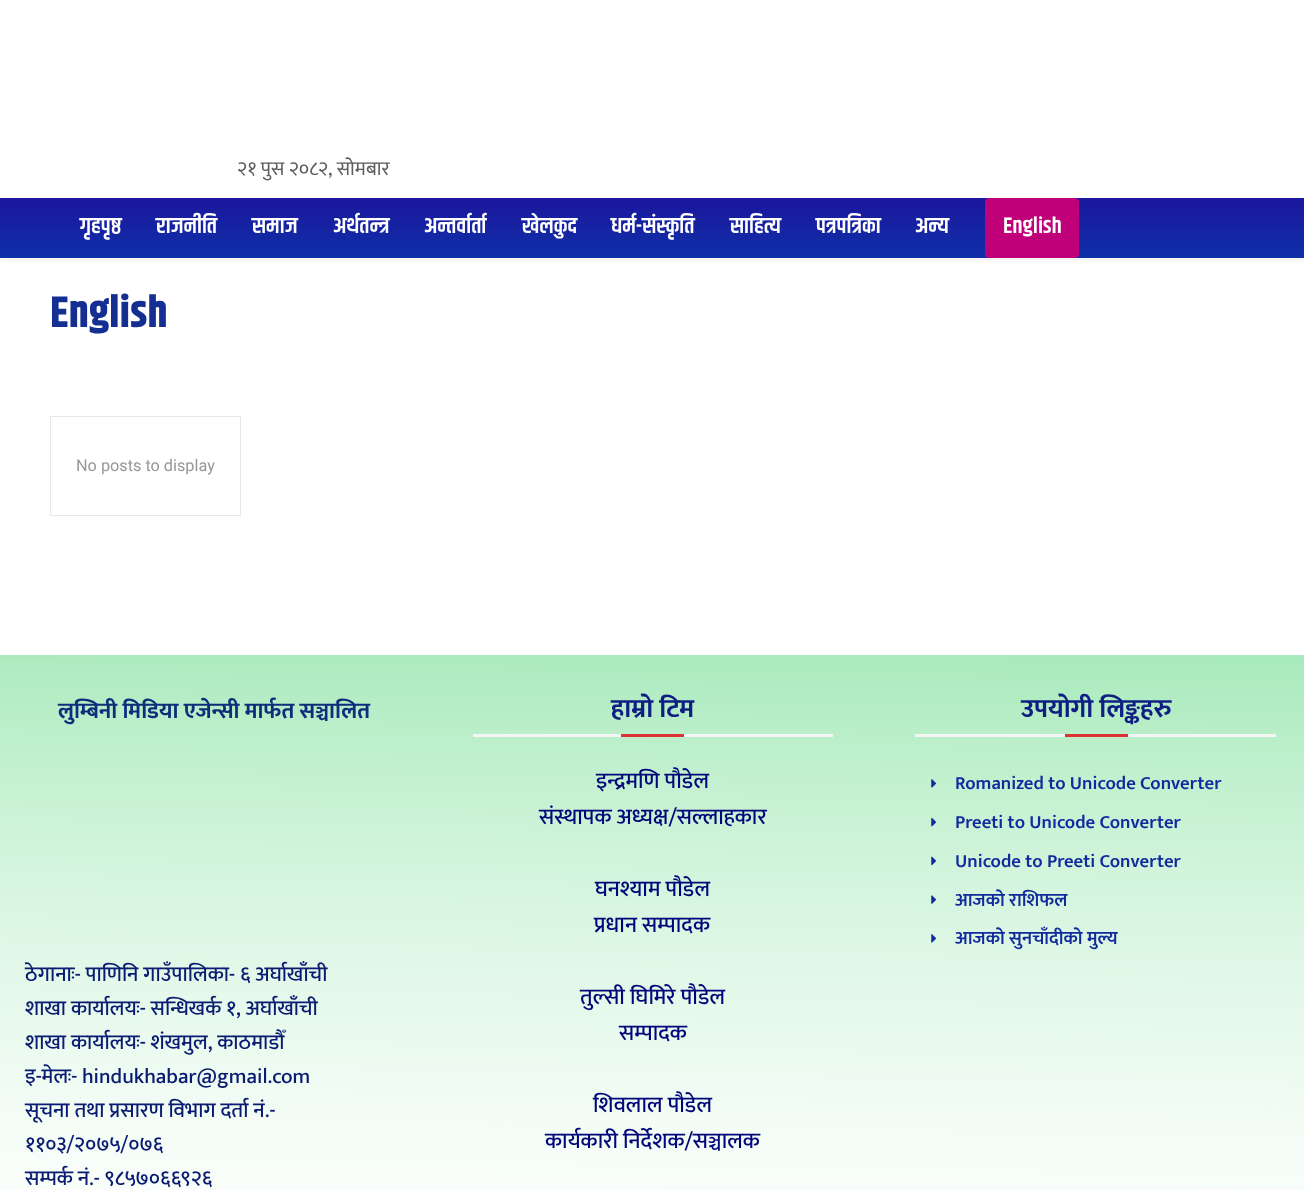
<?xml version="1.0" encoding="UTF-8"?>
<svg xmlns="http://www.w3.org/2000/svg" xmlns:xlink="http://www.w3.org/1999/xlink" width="1304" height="1190">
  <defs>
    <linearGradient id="g1" gradientUnits="userSpaceOnUse" x1="653" y1="197" x2="653" y2="258"><stop offset="0" stop-color="#1c169d" /><stop offset="1" stop-color="#0f30a8" /></linearGradient>
    <clipPath id="clip1"><path d="M 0 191 h 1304 v 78 h -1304 z m 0 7 h 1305 v 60 h -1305 z" clip-rule="evenodd" /></clipPath>
    <linearGradient id="g2" gradientUnits="userSpaceOnUse" x1="647" y1="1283" x2="658" y2="644"><stop offset="0" stop-color="#ffffff" stop-opacity="0.41" /><stop offset="1" stop-color="#a8eabb" /></linearGradient>
  </defs>
  <rect width="100%" height="100%" fill="#ffffff" />
  <rect y="198" width="1304" height="60" fill="url(#g1)" />
  <g clip-path="url(#clip1)">
    <rect y="200" width="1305" height="60" fill="#000000" fill-opacity="0.06" filter="blur(2.5px)" />
  </g>
  <rect x="985" y="198" width="94" height="60" rx="4" fill="#bf0079" />
  <rect x="50.5" y="416.5" width="190" height="99" fill="none" stroke="#e8e8e8" />
  <rect y="655" width="1072" height="3" fill="#dfdee0" />
  <rect y="655" width="1304" height="535" fill="url(#g2)" />
  <rect x="473" y="734" width="360" height="3" fill="#f5f5f5" />
  <rect x="621" y="734" width="63" height="3" fill="#dd3333" />
  <rect x="915" y="734" width="361" height="3" fill="#f5f5f5" />
  <rect x="1065" y="734" width="63" height="3" fill="#dd3333" />
  <image x="931" y="779" width="5" height="9" xlink:href="image1.png" />
  <image x="931" y="817" width="5" height="10" xlink:href="image2.png" />
  <image x="931" y="856" width="5" height="10" xlink:href="image3.png" />
  <image x="931" y="895" width="5" height="9" xlink:href="image4.png" />
  <image x="931" y="934" width="5" height="9" xlink:href="image5.png" />
  <text x="237" y="175" style="font-family: Mukta; font-size: 20px; fill: #5c5c5c">२१ पुस २०८२, सोमबार</text>
  <text x="80" y="233" style="font-family: Khand; font-size: 22.5px; font-weight: 600; fill: #ffffff">गृहपृष्ठ</text>
  <text x="156" y="233" style="font-family: Khand; font-size: 22.5px; font-weight: 600; fill: #ffffff">राजनीति</text>
  <text x="252" y="233" style="font-family: Khand; font-size: 22.5px; font-weight: 600; fill: #ffffff">समाज</text>
  <text x="333" y="233" style="font-family: Khand; font-size: 22.5px; font-weight: 600; fill: #ffffff">अर्थतन्त्र</text>
  <text x="424" y="233" style="font-family: Khand; font-size: 22.5px; font-weight: 600; fill: #ffffff">अन्तर्वार्ता</text>
  <text x="522" y="233" style="font-family: Khand; font-size: 22.5px; font-weight: 600; fill: #ffffff">खेलकुद</text>
  <text x="611" y="233" style="font-family: Khand; font-size: 22.5px; font-weight: 600; fill: #ffffff">धर्म-संस्कृति</text>
  <text x="730" y="233" style="font-family: Khand; font-size: 22.5px; font-weight: 600; fill: #ffffff">साहित्य</text>
  <text x="816" y="233" style="font-family: Khand; font-size: 22.5px; font-weight: 600; fill: #ffffff">पत्रपत्रिका</text>
  <text x="915" y="233" style="font-family: Khand; font-size: 22.5px; font-weight: 600; fill: #ffffff">अन्य</text>
  <text x="1003" y="233" style="font-family: Khand; font-size: 22.5px; font-weight: 600; fill: #ffffff">English</text>
  <text x="50" y="327" style="font-family: Khand; font-size: 44px; font-weight: bold; fill: #142f91">English</text>
  <text x="76" y="471" style="font-family: Roboto; font-size: 16.25px; fill: #979797">No posts to display</text>
  <text x="58" y="718" style="font-family: Mukta; font-size: 22.5px; font-weight: bold; fill: #102d7c">लुम्बिनी मिडिया एजेन्सी मार्फत सञ्चालित</text>
  <text x="25" y="981" style="font-family: Mukta; font-size: 21.25px; font-weight: 500; fill: #091c72">ठेगानाः- पाणिनि गाउँपालिका- ६ अर्घाखाँची</text>
  <text x="25" y="1015" style="font-family: Mukta; font-size: 21.25px; font-weight: 500; fill: #091c72">शाखा कार्यालयः- सन्धिखर्क १, अर्घाखाँची</text>
  <text x="25" y="1049" style="font-family: Mukta; font-size: 21.25px; font-weight: 500; fill: #091c72">शाखा कार्यालयः- शंखमुल, काठमाडौँ</text>
  <text x="25" y="1083" style="font-family: Mukta; font-size: 21.25px; font-weight: 500; fill: #091c72">इ-मेलः- hindukhabar@gmail.com</text>
  <text x="25" y="1117" style="font-family: Mukta; font-size: 21.25px; font-weight: 500; fill: #091c72">सूचना तथा प्रसारण विभाग दर्ता नं.-</text>
  <text x="25" y="1151" style="font-family: Mukta; font-size: 21.25px; font-weight: 500; fill: #091c72">११०३/२०७५/०७६</text>
  <text x="25" y="1185" style="font-family: Mukta; font-size: 21.25px; font-weight: 500; fill: #091c72">सम्पर्क नं‍.- ९८५७०६६९२६</text>
  <text x="611" y="717" style="font-family: Mukta; font-size: 26.25px; font-weight: bold; fill: #0f1e82">हाम्रो टिम</text>
  <text x="596" y="788" style="font-family: Mukta; font-size: 22.5px; font-weight: 500; fill: #01077a">इन्द्रमणि पौडेल</text>
  <text x="539" y="824" style="font-family: Mukta; font-size: 22.5px; font-weight: 500; fill: #01077a">संस्थापक अध्यक्ष/सल्लाहकार</text>
  <text x="595" y="896" style="font-family: Mukta; font-size: 22.5px; font-weight: 500; fill: #01077a">घनश्याम पौडेल</text>
  <text x="594" y="932" style="font-family: Mukta; font-size: 22.5px; font-weight: 500; fill: #01077a">प्रधान सम्पादक</text>
  <text x="580" y="1004" style="font-family: Mukta; font-size: 22.5px; font-weight: 500; fill: #01077a">तुल्सी घिमिरे पौडेल</text>
  <text x="619" y="1040" style="font-family: Mukta; font-size: 22.5px; font-weight: 500; fill: #01077a">सम्पादक</text>
  <text x="593" y="1112" style="font-family: Mukta; font-size: 22.5px; font-weight: 500; fill: #01077a">शिवलाल पौडेल</text>
  <text x="545" y="1148" style="font-family: Mukta; font-size: 22.5px; font-weight: 500; fill: #01077a">कार्यकारी निर्देशक/सञ्चालक</text>
  <text x="1021" y="717" style="font-family: Mukta; font-size: 26.25px; font-weight: bold; fill: #0f1e82">उपयोगी लिङ्कहरु</text>
  <text x="955" y="789" style="font-family: Mukta; font-size: 18.75px; font-weight: 600; fill: #112b9e">Romanized to Unicode Converter</text>
  <text x="955" y="828" style="font-family: Mukta; font-size: 18.75px; font-weight: 600; fill: #112b9e">Preeti to Unicode Converter</text>
  <text x="955" y="867" style="font-family: Mukta; font-size: 18.75px; font-weight: 600; fill: #112b9e">Unicode to Preeti Converter</text>
  <text x="955" y="906" style="font-family: Mukta; font-size: 18.75px; font-weight: 600; fill: #112b9e">आजको राशिफल</text>
  <text x="955" y="944" style="font-family: Mukta; font-size: 18.75px; font-weight: 600; fill: #112b9e">आजको सुनचाँदीको मुल्य</text>
</svg>
